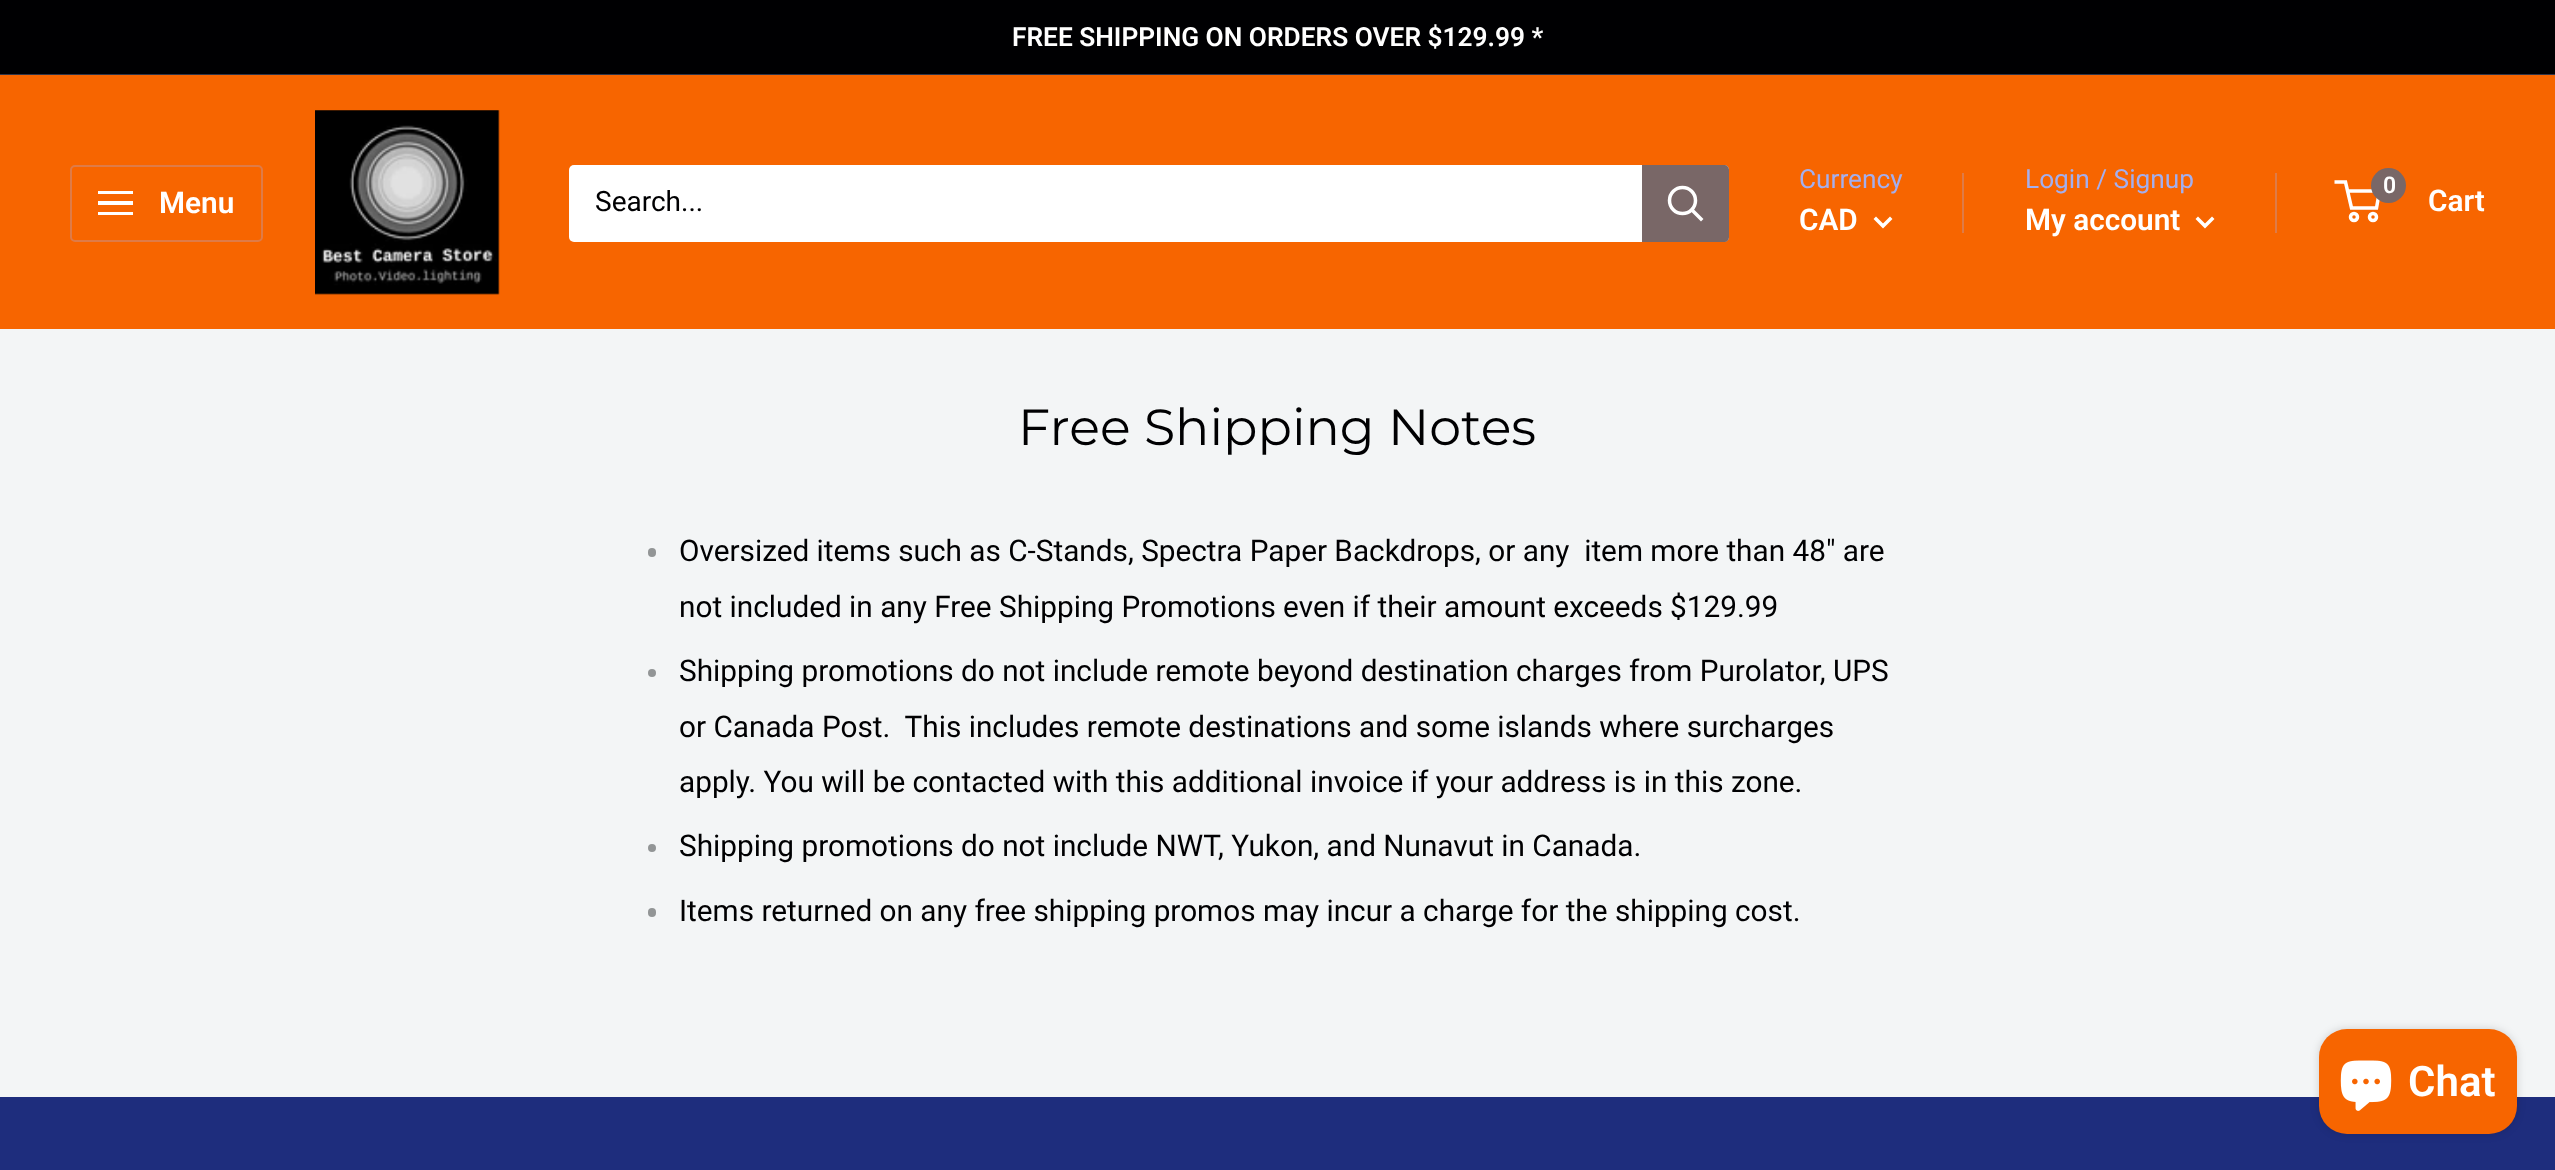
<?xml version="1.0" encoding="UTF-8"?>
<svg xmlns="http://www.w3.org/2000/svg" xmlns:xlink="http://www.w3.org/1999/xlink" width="2555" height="1170">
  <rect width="100%" height="100%" fill="#f3f5f6" />
  <rect width="2555" height="74" fill="#000002" />
  <rect y="74" width="2555" height="1" fill="#313549" />
  <rect y="75" width="2555" height="254" fill="#f76500" />
  <rect x="71" y="166" width="191" height="75" rx="4" fill="none" stroke="#de7b48" stroke-width="2" />
  <path d="M 98 212 h 35 v 3 h -35 z m 0 -21 h 35 v 3 h -35 z m 0 10 h 35 v 4 h -35 z" fill="#ffffff" fill-rule="evenodd" />
  <image x="315" y="110" width="185" height="185" xlink:href="image1.png" />
  <rect x="569" y="165" width="1160" height="77" rx="5" fill="#ffffff" />
  <path d="M 1642 165 h 82 c 3 0 5 2 5 5 v 67 c 0 3 -2 5 -5 5 h -82 z" fill="#796767" />
  <path d="M 1701 219 l -9 -9" fill="none" stroke="#ffffff" stroke-width="3.5" stroke-linecap="square" />
  <circle cx="1682.5" cy="200.5" r="13" fill="none" stroke="#ffffff" stroke-width="3.5" />
  <rect x="1962" y="173" width="2" height="60" fill="#de7b48" />
  <path d="M 1890 219 l -7 7 l -7 -7" fill="none" stroke="#ffffff" stroke-width="3.5" stroke-linecap="square" />
  <rect x="2275" y="173" width="2" height="60" fill="#de7b48" />
  <path d="M 2212 219 l -7 7 l -7 -7" fill="none" stroke="#ffffff" stroke-width="3.5" stroke-linecap="square" />
  <circle cx="2354" cy="217" r="3.5" fill="none" stroke="#ffffff" stroke-width="3.5" />
  <circle cx="2373" cy="217" r="3.5" fill="none" stroke="#ffffff" stroke-width="3.5" />
  <path d="M 2347.5 191 h 32 l -3 17 h -25 l -6 -26 h -11" fill="none" stroke="#ffffff" stroke-width="3.5" />
  <circle cx="2388.5" cy="185.5" r="17.5" fill="#796767" />
  <rect x="648" y="548" width="8" height="9" rx="4" fill="#929596" />
  <circle cx="652" cy="673" r="4" fill="#929596" />
  <circle cx="652" cy="848" r="4" fill="#929596" />
  <rect x="648" y="908" width="8" height="9" rx="4" fill="#929596" />
  <rect y="1097" width="2555" height="73" fill="#1e2d7d" />
  <rect x="2319" y="1029" width="198" height="105" rx="28" fill="#000000" fill-opacity="0.15" filter="blur(4.5px)" />
  <rect x="2319" y="1029" width="198" height="105" rx="28" fill="#f76500" />
  <image x="2340" y="1060" width="52" height="51" xlink:href="image2.png" />
  <text x="1012" y="46" style="font-family: Roboto; font-size: 26.25px; font-weight: 600; fill: #ffffff">FREE SHIPPING ON ORDERS OVER $129.99 *</text>
  <text x="159" y="213" style="font-family: Roboto; font-size: 29.75px; font-weight: 600; fill: #ffffff">Menu</text>
  <text x="595" y="211" style="font-family: Roboto; font-size: 28px; fill: #000002">Search...</text>
  <text x="1799" y="188" style="font-family: Roboto; font-size: 26.25px; fill: #a3afef">Currency</text>
  <text x="1799" y="230" style="font-family: Roboto; font-size: 29.75px; font-weight: 600; fill: #ffffff">CAD</text>
  <text x="2025" y="188" style="font-family: Roboto; font-size: 26.25px; fill: #a3afef">Login / Signup</text>
  <text x="2025" y="230" style="font-family: Roboto; font-size: 29.75px; font-weight: 600; fill: #ffffff">My account</text>
  <text x="2383" y="193" style="font-family: Roboto; font-size: 23px; font-weight: 600; fill: #ffffff">0</text>
  <text x="2428" y="211" style="font-family: Roboto; font-size: 29.75px; font-weight: 600; fill: #ffffff">Cart</text>
  <text x="1018" y="445" style="font-family: Montserrat; font-size: 50.75px; fill: #000002">Free Shipping Notes</text>
  <text x="679" y="561" style="font-family: Roboto; font-size: 29.75px; fill: #000002" xml:space="preserve">Oversized items such as C-Stands, Spectra Paper Backdrops, or any  item more than 48" are</text>
  <text x="679" y="617" style="font-family: Roboto; font-size: 29.75px; fill: #000002">not included in any Free Shipping Promotions even if their amount exceeds $129.99</text>
  <text x="679" y="681" style="font-family: Roboto; font-size: 29.75px; fill: #000002">Shipping promotions do not include remote beyond destination charges from Purolator, UPS</text>
  <text x="679" y="737" style="font-family: Roboto; font-size: 29.75px; fill: #000002" xml:space="preserve">or Canada Post.  This includes remote destinations and some islands where surcharges</text>
  <text x="679" y="792" style="font-family: Roboto; font-size: 29.75px; fill: #000002">apply. You will be contacted with this additional invoice if your address is in this zone.</text>
  <text x="679" y="856" style="font-family: Roboto; font-size: 29.75px; fill: #000002">Shipping promotions do not include NWT, Yukon, and Nunavut in Canada.</text>
  <text x="679" y="921" style="font-family: Roboto; font-size: 29.75px; fill: #000002">Items returned on any free shipping promos may incur a charge for the shipping cost.</text>
  <text x="2408" y="1096" style="font-family: Roboto; font-size: 42px; font-weight: 600; fill: #ffffff">Chat</text>
</svg>
